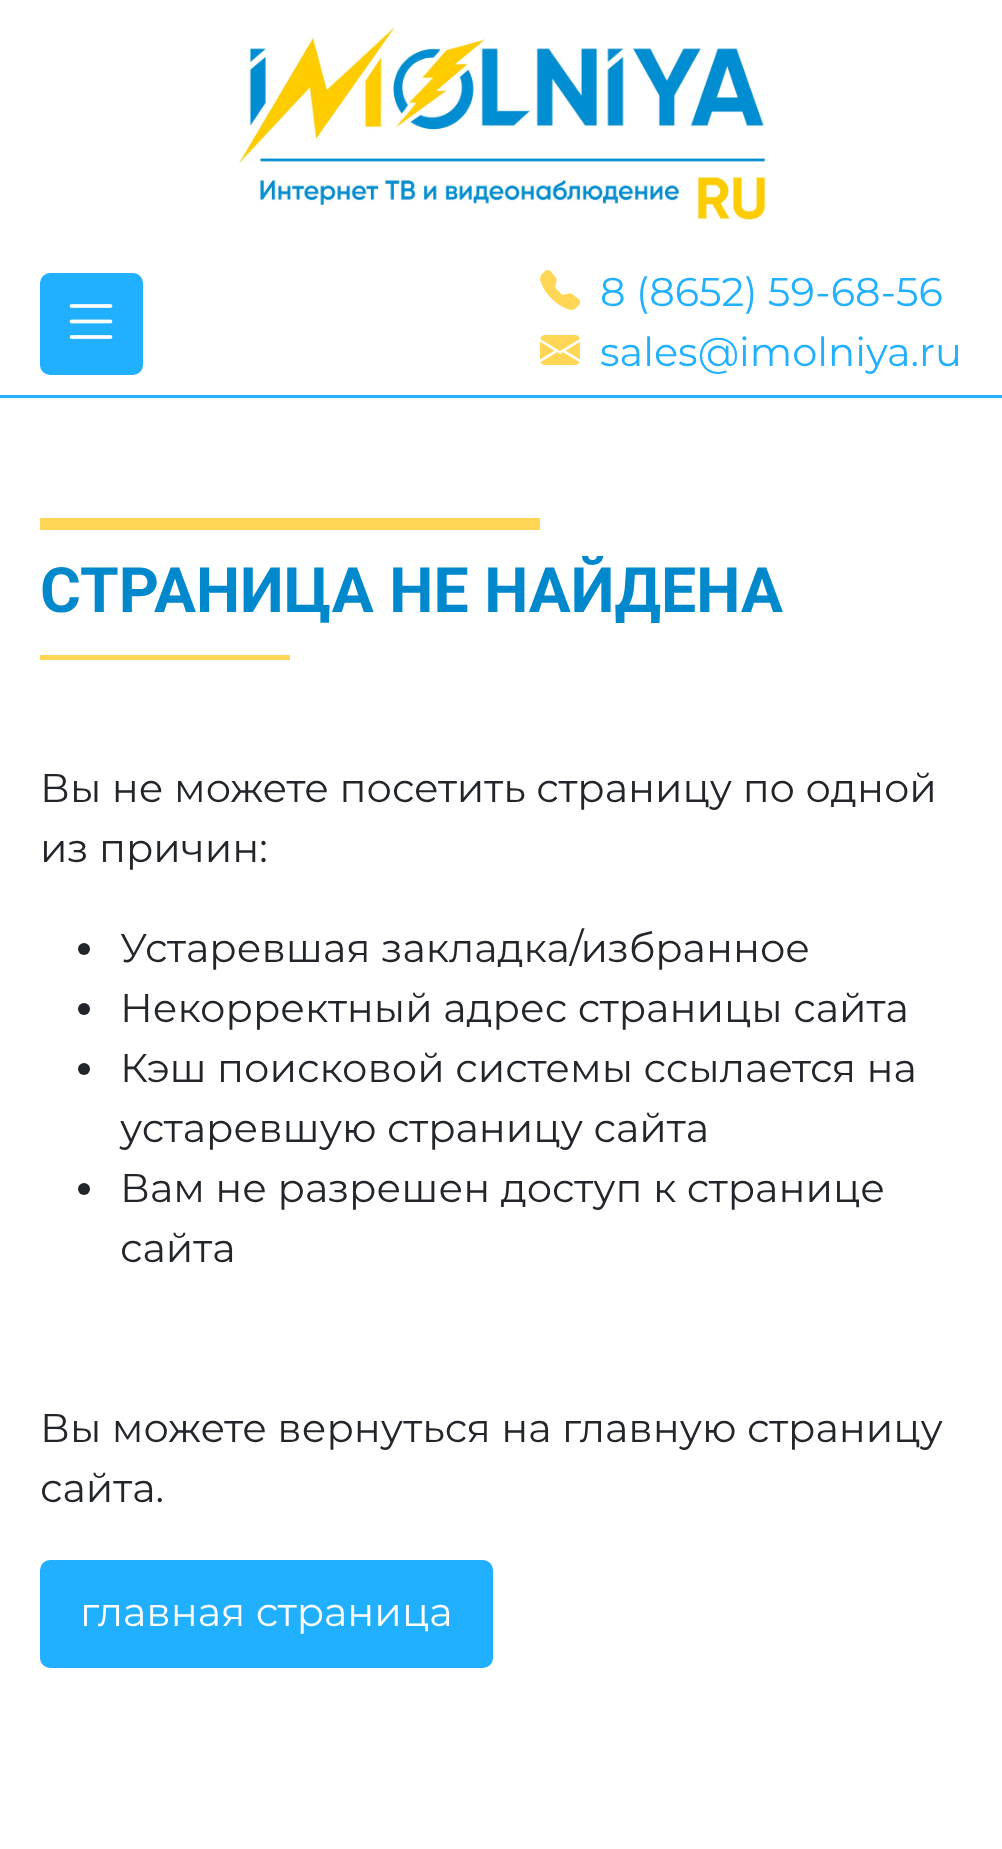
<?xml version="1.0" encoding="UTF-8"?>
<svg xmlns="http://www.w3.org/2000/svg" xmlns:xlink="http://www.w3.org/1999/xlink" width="1002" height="1849">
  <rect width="100%" height="100%" fill="#ffffff" />
  <rect y="395" width="1002" height="3" fill="#21b0ff" />
  <image x="238" y="26" width="528" height="195" xlink:href="image1.png" />
  <rect x="40" y="273" width="103" height="102" rx="10" fill="#21b0ff" />
  <image x="69" y="304" width="44" height="35" xlink:href="image2.png" />
  <image x="540" y="270" width="40" height="40" xlink:href="image3.png" />
  <image x="540" y="334" width="40" height="32" xlink:href="image4.png" />
  <rect x="40" y="518" width="500" height="12" fill="#ffd656" />
  <rect x="40" y="655" width="250" height="5" fill="#ffd656" />
  <circle cx="84" cy="949" r="6" fill="#22262a" />
  <circle cx="84" cy="1009" r="6" fill="#22262a" />
  <circle cx="84" cy="1069" r="6" fill="#22262a" />
  <circle cx="84" cy="1189" r="6" fill="#22262a" />
  <rect x="40" y="1560" width="453" height="108" rx="10" fill="#21b0ff" />
  <text x="600" y="306" style="font-family: Montserrat; font-size: 40px; fill: #21b0ff">8 (8652) 59-68-56</text>
  <text x="600" y="366" style="font-family: Montserrat; font-size: 40px; fill: #21b0ff">sales@imolniya.ru</text>
  <text x="40" y="612" style="font-family: Roboto; font-size: 62.5px; font-weight: bold; fill: #0088cc">СТРАНИЦА НЕ НАЙДЕНА</text>
  <text x="40" y="802" style="font-family: Montserrat; font-size: 40px; fill: #22262a">Вы не можете посетить страницу по одной</text>
  <text x="40" y="862" style="font-family: Montserrat; font-size: 40px; fill: #22262a">из причин:</text>
  <text x="120" y="962" style="font-family: Montserrat; font-size: 40px; fill: #22262a">Устаревшая закладка/избранное</text>
  <text x="120" y="1022" style="font-family: Montserrat; font-size: 40px; fill: #22262a">Некорректный адрес страницы сайта</text>
  <text x="120" y="1082" style="font-family: Montserrat; font-size: 40px; fill: #22262a">Кэш поисковой системы ссылается на</text>
  <text x="120" y="1142" style="font-family: Montserrat; font-size: 40px; fill: #22262a">устаревшую страницу сайта</text>
  <text x="120" y="1202" style="font-family: Montserrat; font-size: 40px; fill: #22262a">Вам не разрешен доступ к странице</text>
  <text x="120" y="1262" style="font-family: Montserrat; font-size: 40px; fill: #22262a">сайта</text>
  <text x="40" y="1442" style="font-family: Montserrat; font-size: 40px; fill: #22262a">Вы можете вернуться на главную страницу</text>
  <text x="40" y="1502" style="font-family: Montserrat; font-size: 40px; fill: #22262a">сайта.</text>
  <text x="80" y="1626" style="font-family: Montserrat; font-size: 40px; fill: #ffffff">главная страница</text>
</svg>
